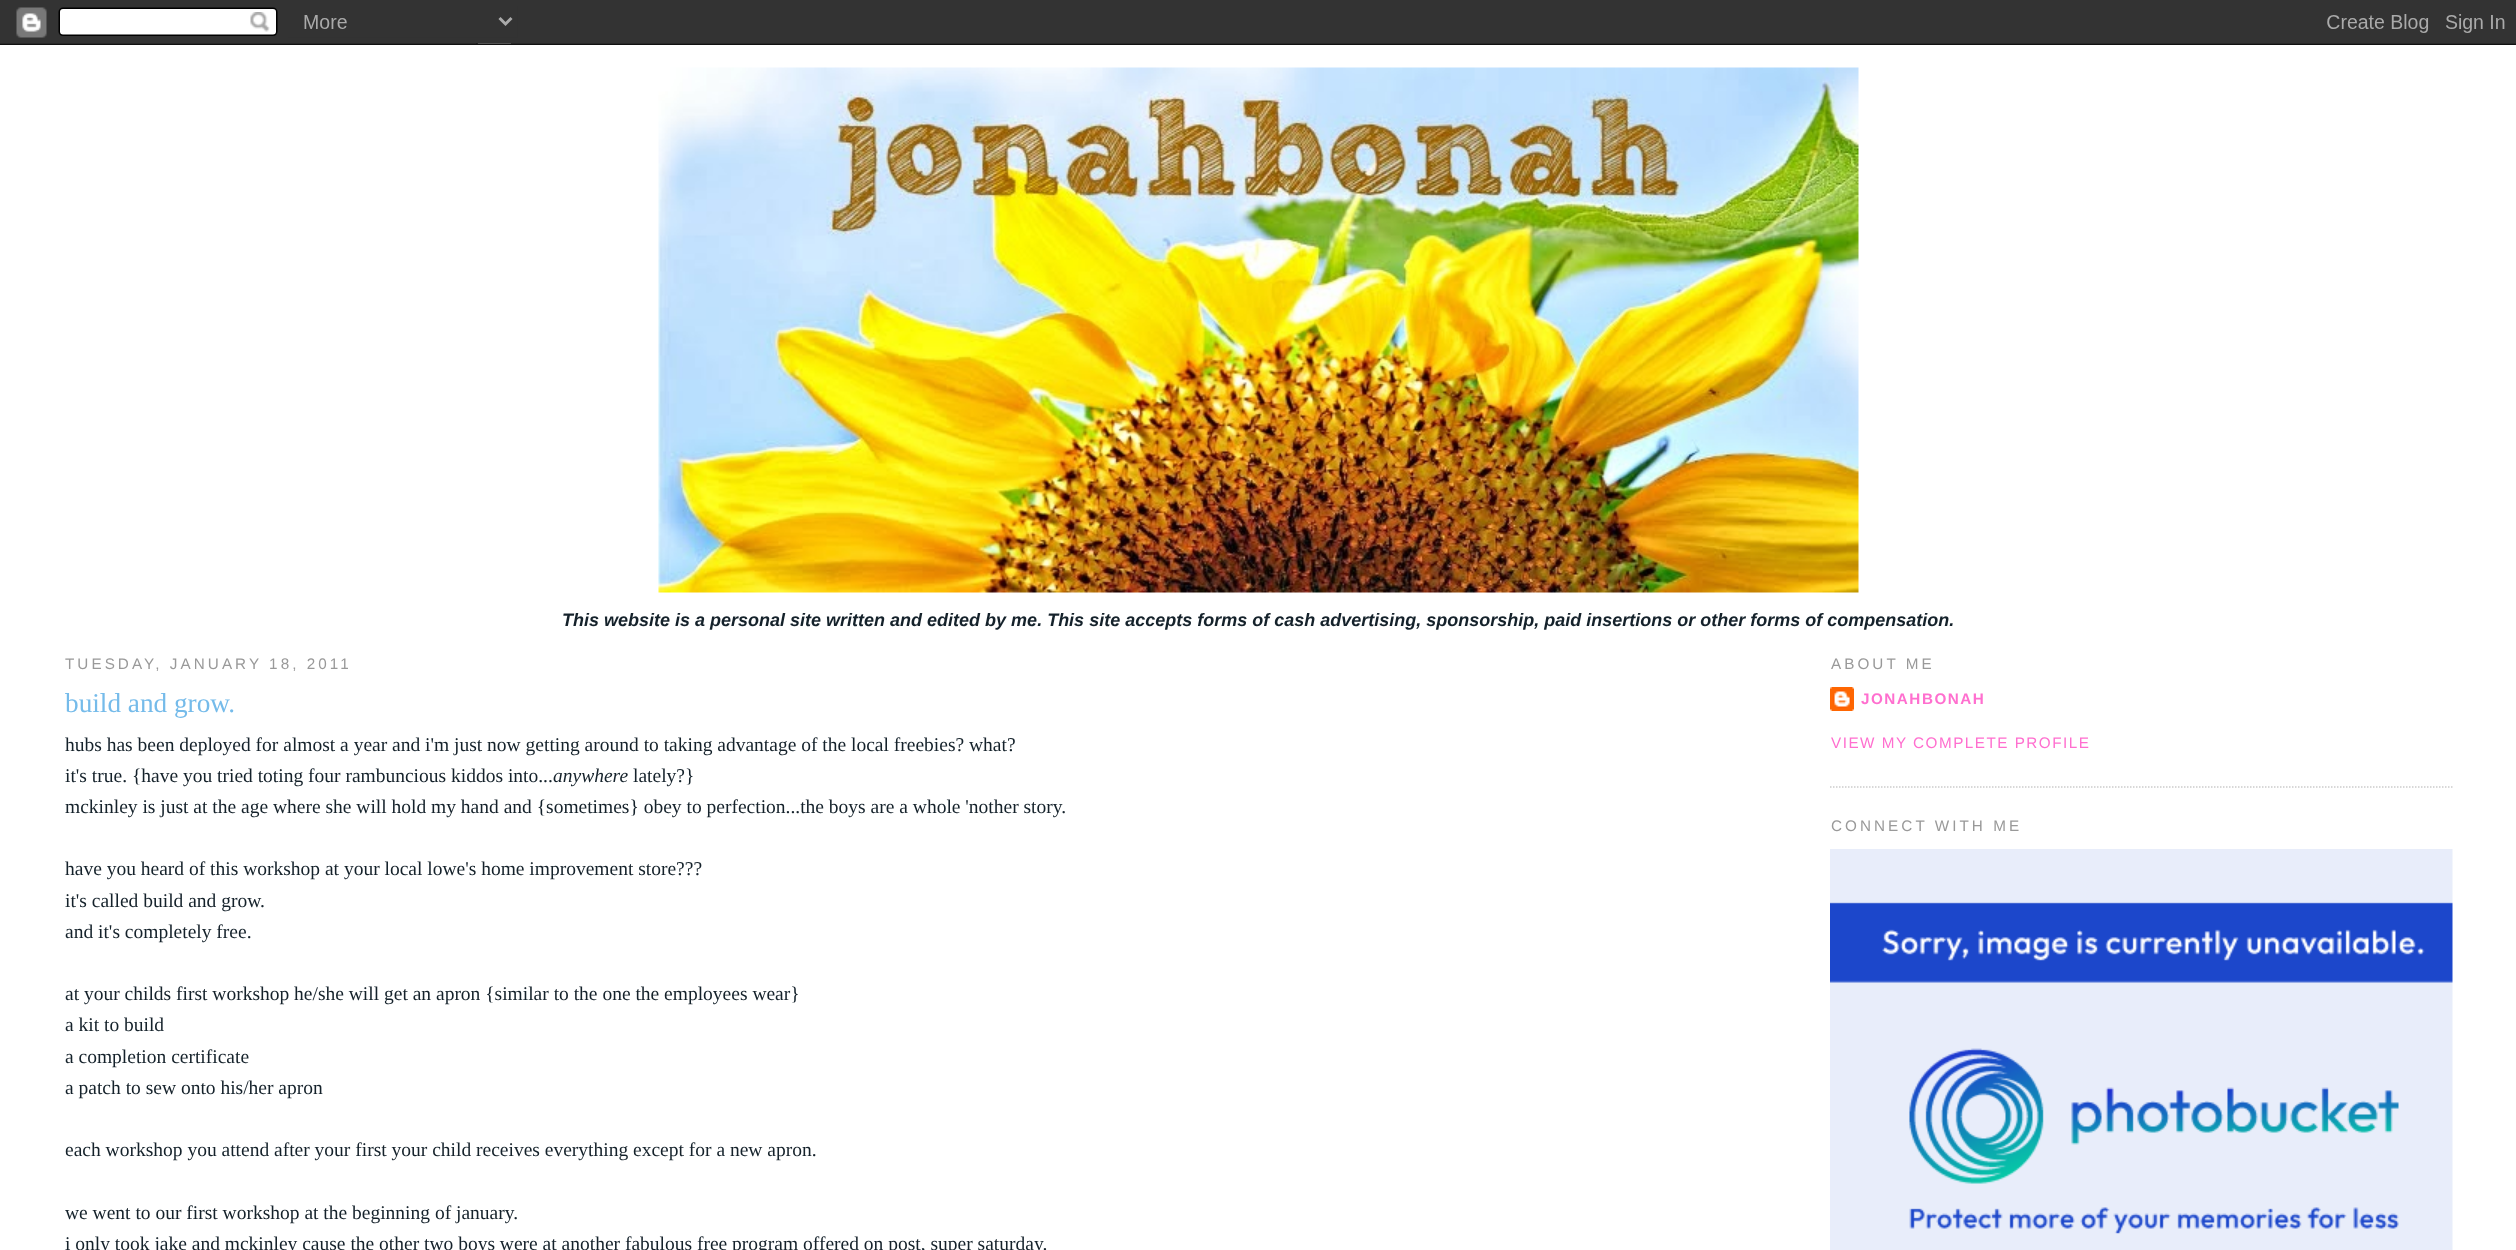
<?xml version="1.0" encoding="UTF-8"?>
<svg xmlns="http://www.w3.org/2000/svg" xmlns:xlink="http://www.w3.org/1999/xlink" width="2516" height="1250">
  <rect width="100%" height="100%" fill="#ffffff" />
  <image x="0" y="0" width="2516" height="45" xlink:href="image1.png" />
  <image x="658" y="67" width="1201" height="526" xlink:href="image2.png" />
  <path d="M 1830 787 h 622.5" fill="none" stroke="#cccccc" stroke-width="1.5" stroke-dasharray="1.5 1.5" />
  <image x="1830" y="687" width="24" height="24" xlink:href="image3.png" />
  <image x="1830" y="849" width="623" height="401" xlink:href="image4.png" />
  <text x="562" y="626" style="font-family: Liberation Sans; font-size: 18px; font-weight: bold; font-style: italic; fill: #15222b">This website is a personal site written and edited by me. This site accepts forms of cash advertising, sponsorship, paid insertions or other forms of compensation.</text>
  <text x="65" y="669" style="font-family: Liberation Sans; font-size: 15.25px; letter-spacing: 3.05px; fill: #999999">TUESDAY, JANUARY 18, 2011</text>
  <text x="65" y="712" style="font-family: Liberation Serif; font-size: 27.25px; fill: #75bbea">build and grow.</text>
  <text x="65" y="751" style="font-family: Liberation Serif; font-size: 19.5px; fill: #15222b">hubs has been deployed for almost a year and i'm just now getting around to taking advantage of the local freebies? what?</text>
  <text x="65" y="782" style="font-family: Liberation Serif; font-size: 19.5px; fill: #15222b">it's true. {have you tried toting four rambuncious kiddos into...</text>
  <text x="553" y="782" style="font-family: Liberation Serif; font-size: 19.5px; font-style: italic; fill: #15222b">anywhere</text>
  <text x="633" y="782" style="font-family: Liberation Serif; font-size: 19.5px; fill: #15222b">lately?}</text>
  <text x="65" y="813" style="font-family: Liberation Serif; font-size: 19.5px; fill: #15222b">mckinley is just at the age where she will hold my hand and {sometimes} obey to perfection...the boys are a whole 'nother story.</text>
  <text x="65" y="875" style="font-family: Liberation Serif; font-size: 19.5px; fill: #15222b">have you heard of this workshop at your local lowe's home improvement store???</text>
  <text x="65" y="907" style="font-family: Liberation Serif; font-size: 19.5px; fill: #15222b">it's called build and grow.</text>
  <text x="65" y="938" style="font-family: Liberation Serif; font-size: 19.5px; fill: #15222b">and it's completely free.</text>
  <text x="65" y="1000" style="font-family: Liberation Serif; font-size: 19.5px; fill: #15222b">at your childs first workshop he/she will get an apron {similar to the one the employees wear}</text>
  <text x="65" y="1031" style="font-family: Liberation Serif; font-size: 19.5px; fill: #15222b">a kit to build</text>
  <text x="65" y="1063" style="font-family: Liberation Serif; font-size: 19.5px; fill: #15222b">a completion certificate</text>
  <text x="65" y="1094" style="font-family: Liberation Serif; font-size: 19.5px; fill: #15222b">a patch to sew onto his/her apron</text>
  <text x="65" y="1156" style="font-family: Liberation Serif; font-size: 19.5px; fill: #15222b">each workshop you attend after your first your child receives everything except for a new apron.</text>
  <text x="65" y="1219" style="font-family: Liberation Serif; font-size: 19.5px; fill: #15222b">we went to our first workshop at the beginning of january.</text>
  <text x="65" y="1250" style="font-family: Liberation Serif; font-size: 19.5px; fill: #15222b">i only took jake and mckinley cause the other two boys were at another fabulous free program offered on post, super saturday.</text>
  <text x="1831" y="669" style="font-family: Liberation Sans; font-size: 15.25px; letter-spacing: 3.05px; fill: #999999">ABOUT ME</text>
  <text x="1861" y="704" style="font-family: Liberation Sans; font-size: 15.25px; font-weight: bold; letter-spacing: 1.5px; fill: #ff6fcf">JONAHBONAH</text>
  <text x="1831" y="748" style="font-family: Liberation Sans; font-size: 15.25px; letter-spacing: 1.5px; fill: #ff6fcf">VIEW MY COMPLETE PROFILE</text>
  <text x="1831" y="831" style="font-family: Liberation Sans; font-size: 15.25px; letter-spacing: 3.05px; fill: #999999">CONNECT WITH ME</text>
</svg>
